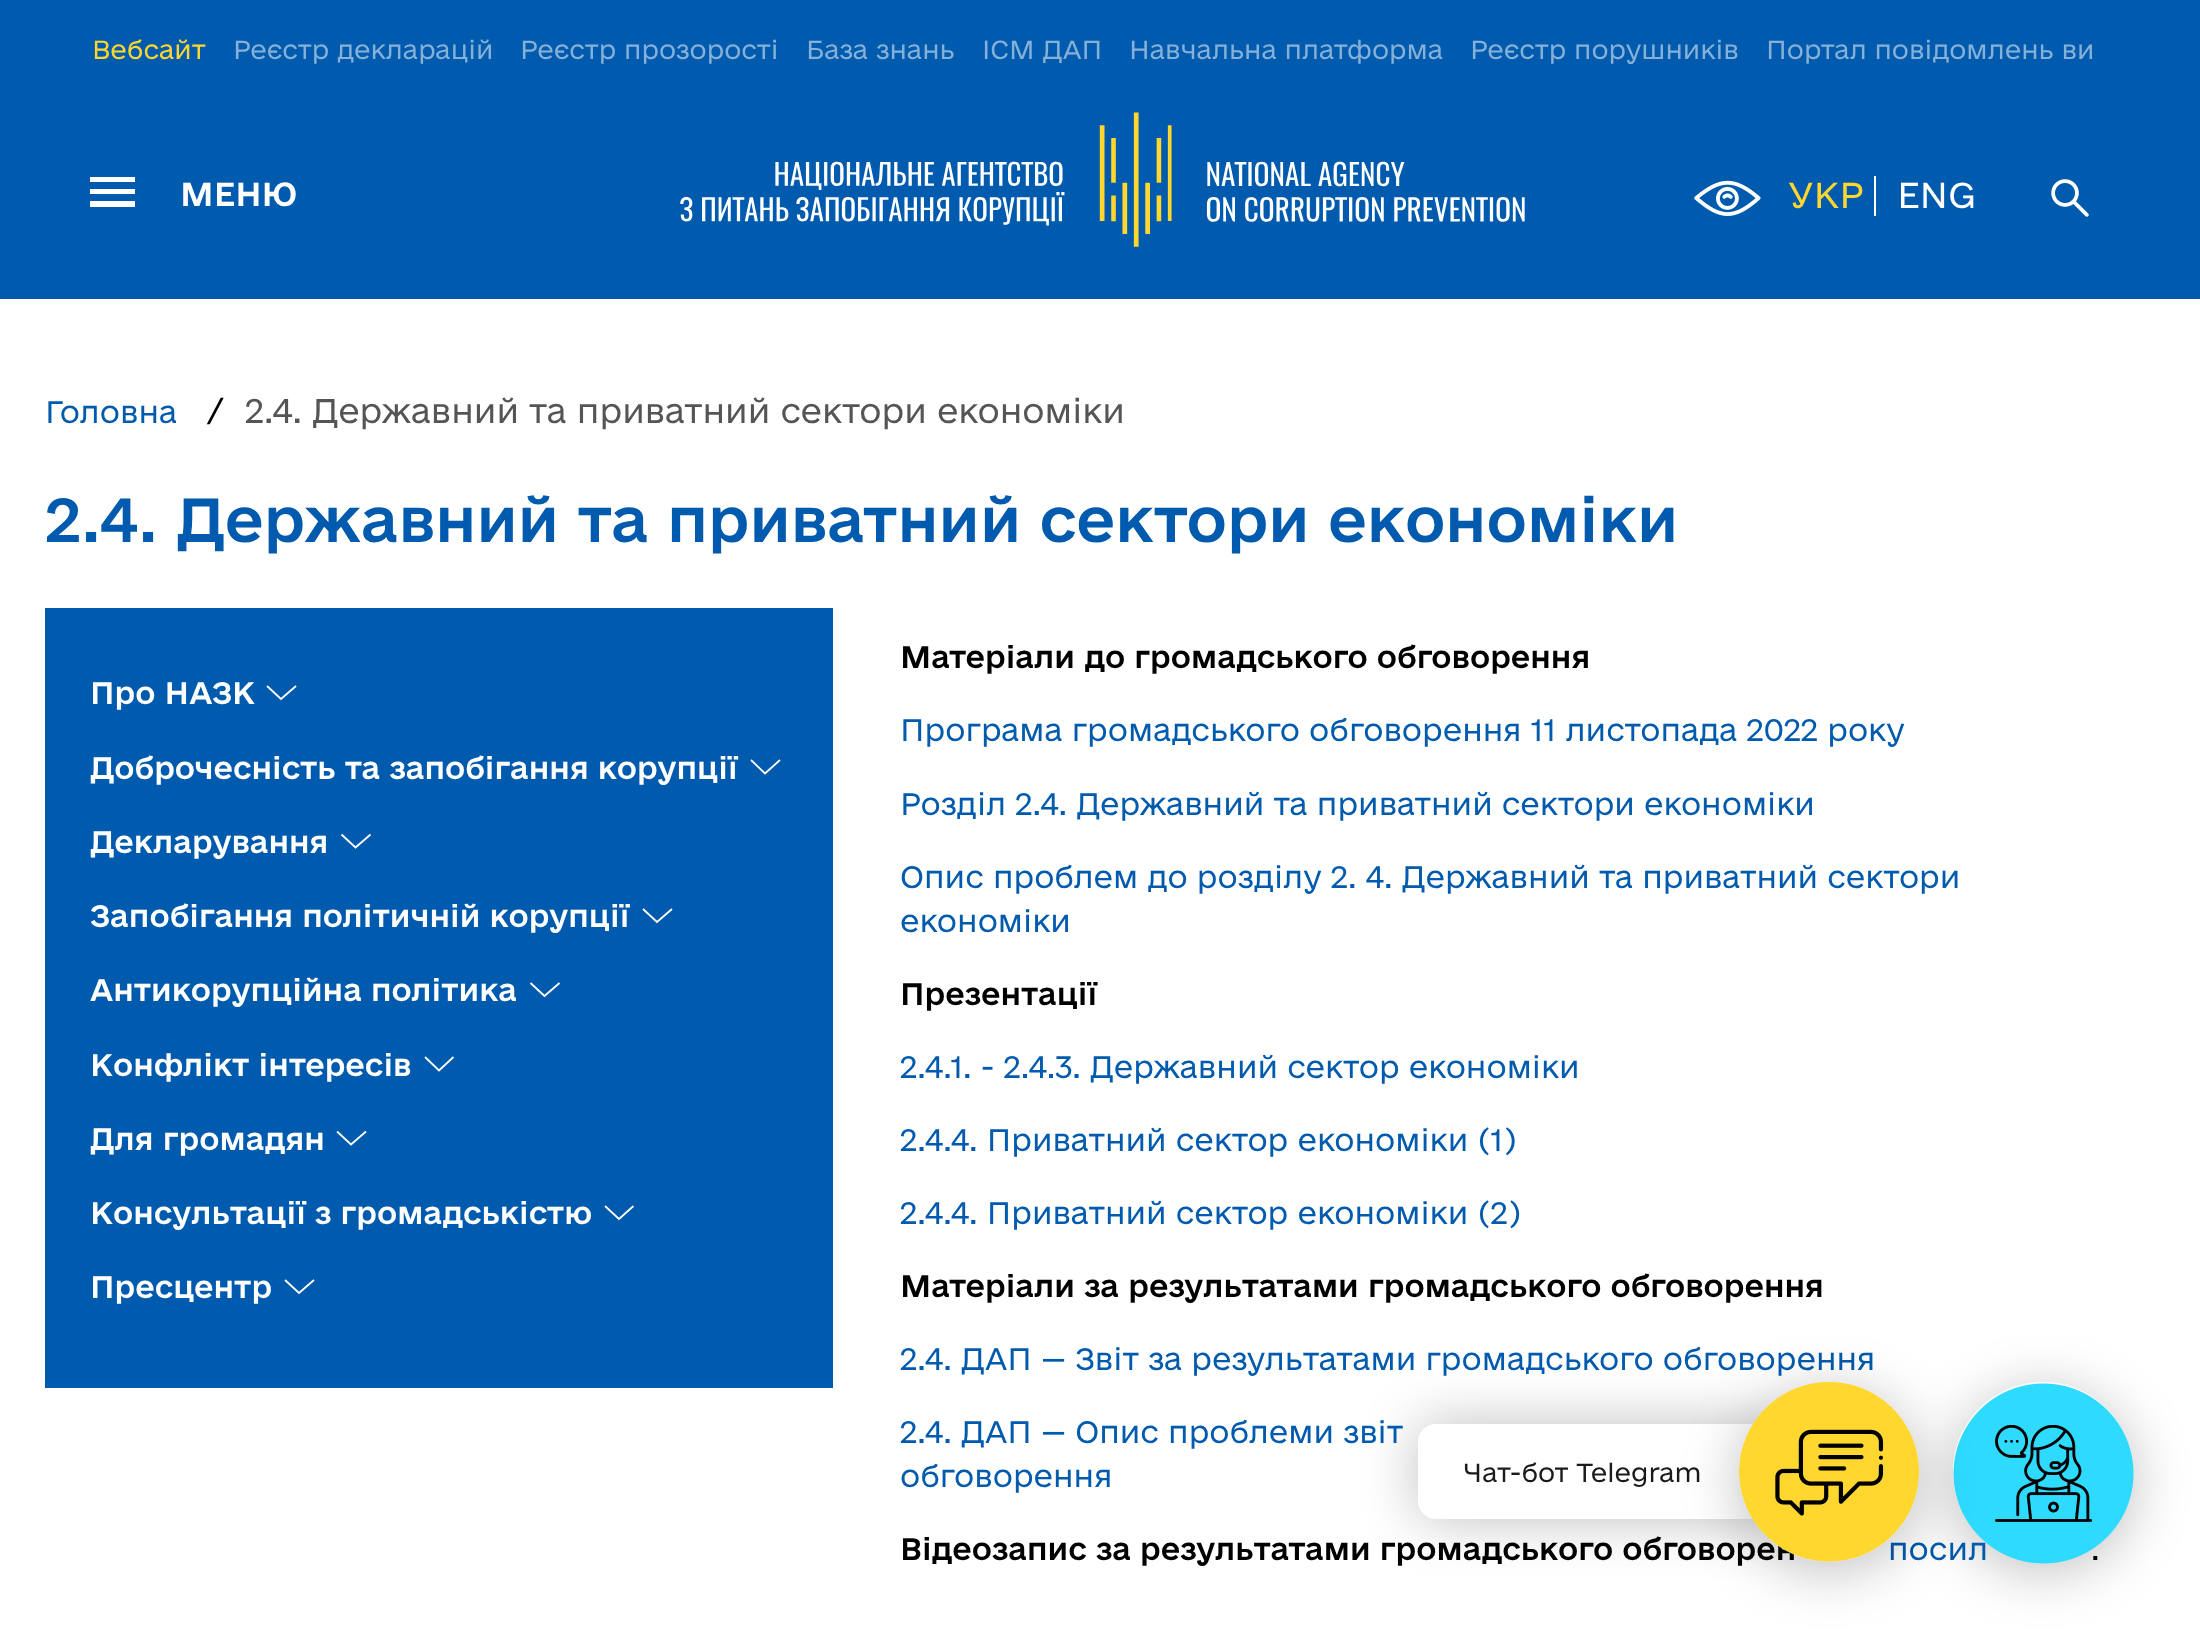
<?xml version="1.0" encoding="UTF-8"?>
<svg xmlns="http://www.w3.org/2000/svg" xmlns:xlink="http://www.w3.org/1999/xlink" width="2200" height="1634">
  <defs>
    <clipPath id="clip1"><path d="M 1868 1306 h 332 v 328 h -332 z m 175 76 c 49.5 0 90 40.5 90 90 c 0 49.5 -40.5 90 -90 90 c -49.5 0 -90 -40.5 -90 -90 c 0 -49.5 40.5 -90 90 -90 z" clip-rule="evenodd" /></clipPath>
  </defs>
  <rect width="100%" height="100%" fill="#ffffff" />
  <rect width="2200" height="299" fill="#005aad" />
  <rect x="90" y="177" width="45" height="5" fill="#ffffff" />
  <rect x="90" y="189" width="45" height="5" fill="#ffffff" />
  <rect x="90" y="201" width="45" height="6" fill="#ffffff" />
  <image x="680" y="112" width="845" height="135" xlink:href="image1.png" />
  <image x="1694" y="180" width="67" height="36" xlink:href="image2.png" />
  <rect x="1874" y="176" width="2" height="40" fill="#ffffff" />
  <image x="2051" y="179" width="38" height="38" xlink:href="image3.png" />
  <rect x="45" y="608" width="788" height="780" fill="#005aad" />
  <path d="M 267 686 l 14 13 l 15 -13" fill="none" stroke="#ffffff" stroke-width="1.8" />
  <path d="M 751 760 l 14 13.5 l 15 -13.5" fill="none" stroke="#ffffff" stroke-width="1.8" />
  <path d="M 341.5 834.5 l 14 13 l 15 -13" fill="none" stroke="#ffffff" stroke-width="1.8" />
  <path d="M 643 909 l 14 13 l 15 -13" fill="none" stroke="#ffffff" stroke-width="1.8" />
  <path d="M 530.5 983 l 14 13 l 15 -13" fill="none" stroke="#ffffff" stroke-width="1.8" />
  <path d="M 425 1057 l 14 13.5 l 14.5 -13.5" fill="none" stroke="#ffffff" stroke-width="1.8" />
  <path d="M 337 1131.5 l 14 13 l 15 -13" fill="none" stroke="#ffffff" stroke-width="1.8" />
  <path d="M 605 1206 l 14 13 l 14.5 -13" fill="none" stroke="#ffffff" stroke-width="1.8" />
  <path d="M 285 1280 l 14 13 l 15 -13" fill="none" stroke="#ffffff" stroke-width="1.8" />
  <rect x="1418" y="1424" width="355" height="95" rx="18" fill="#000000" fill-opacity="0.25" filter="blur(28px)" />
  <rect x="1418" y="1424" width="355" height="95" rx="18" fill="#ffffff" />
  <g clip-path="url(#clip1)">
    <rect x="1953" y="1391" width="180" height="180" rx="90" fill="#000000" fill-opacity="0.25" filter="blur(28px)" />
  </g>
  <text x="92" y="59" style="font-family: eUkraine; font-size: 24.75px; font-weight: 300; fill: #ffd72f">Вебсайт</text>
  <text x="233" y="59" style="font-family: eUkraine; font-size: 24.75px; font-weight: 300; fill: #85b0d8">Реєстр декларацій</text>
  <text x="520" y="59" style="font-family: eUkraine; font-size: 24.75px; font-weight: 300; fill: #85b0d8">Реєстр прозорості</text>
  <text x="806" y="59" style="font-family: eUkraine; font-size: 24.75px; font-weight: 300; fill: #85b0d8">База знань</text>
  <text x="982" y="59" style="font-family: eUkraine; font-size: 24.75px; font-weight: 300; fill: #85b0d8">ІСМ ДАП</text>
  <text x="1129" y="59" style="font-family: eUkraine; font-size: 24.75px; font-weight: 300; fill: #85b0d8">Навчальна платформа</text>
  <text x="1470" y="59" style="font-family: eUkraine; font-size: 24.75px; font-weight: 300; fill: #85b0d8">Реєстр порушників</text>
  <text x="1766" y="59" style="font-family: eUkraine; font-size: 24.75px; font-weight: 300; fill: #85b0d8">Портал повідомлень ви</text>
  <text x="180" y="206" style="font-family: eUkraine; font-size: 31.5px; font-weight: 500; fill: #ffffff">МЕНЮ</text>
  <text x="1788" y="208" style="font-family: eUkraine; font-size: 34px; font-weight: 300; fill: #ffd72f">УКР</text>
  <text x="1897" y="208" style="font-family: eUkraine; font-size: 34px; font-weight: 300; fill: #ffffff">ENG</text>
  <text x="45" y="423" style="font-family: eUkraine; font-size: 29.25px; font-weight: 300; fill: #005aad">Головна</text>
  <text x="208" y="423" style="font-family: eUkraine; font-size: 32.2px; font-weight: 300; fill: #000000">/</text>
  <text x="245" y="423" style="font-family: eUkraine; font-size: 32.2px; font-weight: 300; fill: #555555">2.4. Державний та приватний сектори економіки</text>
  <text x="45" y="542" style="font-family: eUkraine; font-size: 58.5px; font-weight: 500; fill: #005aad">2.4. Державний та приватний сектори економіки</text>
  <text x="90" y="704" style="font-family: eUkraine; font-size: 29.25px; font-weight: 500; fill: #ffffff">Про НАЗК</text>
  <text x="90" y="779" style="font-family: eUkraine; font-size: 29.25px; font-weight: 500; fill: #ffffff">Доброчесність та запобігання корупції</text>
  <text x="90" y="853" style="font-family: eUkraine; font-size: 29.25px; font-weight: 500; fill: #ffffff">Декларування</text>
  <text x="90" y="927" style="font-family: eUkraine; font-size: 29.25px; font-weight: 500; fill: #ffffff">Запобігання політичній корупції</text>
  <text x="90" y="1001" style="font-family: eUkraine; font-size: 29.25px; font-weight: 500; fill: #ffffff">Антикорупційна політика</text>
  <text x="90" y="1076" style="font-family: eUkraine; font-size: 29.25px; font-weight: 500; fill: #ffffff">Конфлікт інтересів</text>
  <text x="90" y="1150" style="font-family: eUkraine; font-size: 29.25px; font-weight: 500; fill: #ffffff">Для громадян</text>
  <text x="90" y="1224" style="font-family: eUkraine; font-size: 29.25px; font-weight: 500; fill: #ffffff">Консультації з громадськістю</text>
  <text x="90" y="1298" style="font-family: eUkraine; font-size: 29.25px; font-weight: 500; fill: #ffffff">Пресцентр</text>
  <text x="900" y="668" style="font-family: eUkraine; font-size: 29.25px; font-weight: 500; fill: #000000">Матеріали до громадського обговорення</text>
  <text x="900" y="741" style="font-family: eUkraine; font-size: 29.25px; font-weight: 300; fill: #005aad">Програма громадського обговорення 11 листопада 2022 року</text>
  <text x="900" y="815" style="font-family: eUkraine; font-size: 29.25px; font-weight: 300; fill: #005aad">Розділ 2.4. Державний та приватний сектори економіки</text>
  <text x="900" y="888" style="font-family: eUkraine; font-size: 29.25px; font-weight: 300; fill: #005aad">Опис проблем до розділу 2. 4. Державний та приватний сектори</text>
  <text x="900" y="932" style="font-family: eUkraine; font-size: 29.25px; font-weight: 300; fill: #005aad">економіки</text>
  <text x="900" y="1005" style="font-family: eUkraine; font-size: 29.25px; font-weight: 500; fill: #000000">Презентації</text>
  <text x="900" y="1078" style="font-family: eUkraine; font-size: 29.25px; font-weight: 300; fill: #005aad">2.4.1. - 2.4.3. Державний сектор економіки</text>
  <text x="900" y="1151" style="font-family: eUkraine; font-size: 29.25px; font-weight: 300; fill: #005aad">2.4.4. Приватний сектор економіки (1)</text>
  <text x="900" y="1224" style="font-family: eUkraine; font-size: 29.25px; font-weight: 300; fill: #005aad">2.4.4. Приватний сектор економіки (2)</text>
  <text x="900" y="1297" style="font-family: eUkraine; font-size: 29.25px; font-weight: 500; fill: #000000">Матеріали за результатами громадського обговорення</text>
  <text x="900" y="1370" style="font-family: eUkraine; font-size: 29.25px; font-weight: 300; fill: #005aad">2.4. ДАП — Звіт за результатами громадського обговорення</text>
  <text x="900" y="1443" style="font-family: eUkraine; font-size: 29.25px; font-weight: 300; fill: #005aad">2.4. ДАП — Опис проблеми звіт</text>
  <text x="900" y="1487" style="font-family: eUkraine; font-size: 29.25px; font-weight: 300; fill: #005aad">обговорення</text>
  <text x="900" y="1560" style="font-family: eUkraine; font-size: 29.25px; font-weight: 500; fill: #000000">Відеозапис за результатами громадського обговорен</text>
  <text x="1888" y="1560" style="font-family: eUkraine; font-size: 29.25px; font-weight: 300; fill: #005aad">посил</text>
  <text x="2091" y="1560" style="font-family: eUkraine; font-size: 29.25px; font-weight: 300; fill: #000000">.</text>
  <text x="1463" y="1482" style="font-family: eUkraine; font-size: 24.75px; font-weight: 300; fill: #1a1a1a">Чат-бот Telegram</text>
  <circle cx="2043" cy="1472" r="86.5" fill="none" stroke="#ffffff" stroke-opacity="0.33" stroke-width="7" />
  <image x="1953" y="1383" width="181" height="181" xlink:href="image5.png" />
  <rect x="1739" y="1391" width="180" height="180" rx="90" fill="#000000" fill-opacity="0.25" filter="blur(28px)" />
  <circle cx="1829" cy="1472" r="86.5" fill="none" stroke="#ffffff" stroke-opacity="0.33" stroke-width="7" />
  <image x="1739" y="1382" width="180" height="180" xlink:href="image4.png" />
</svg>
